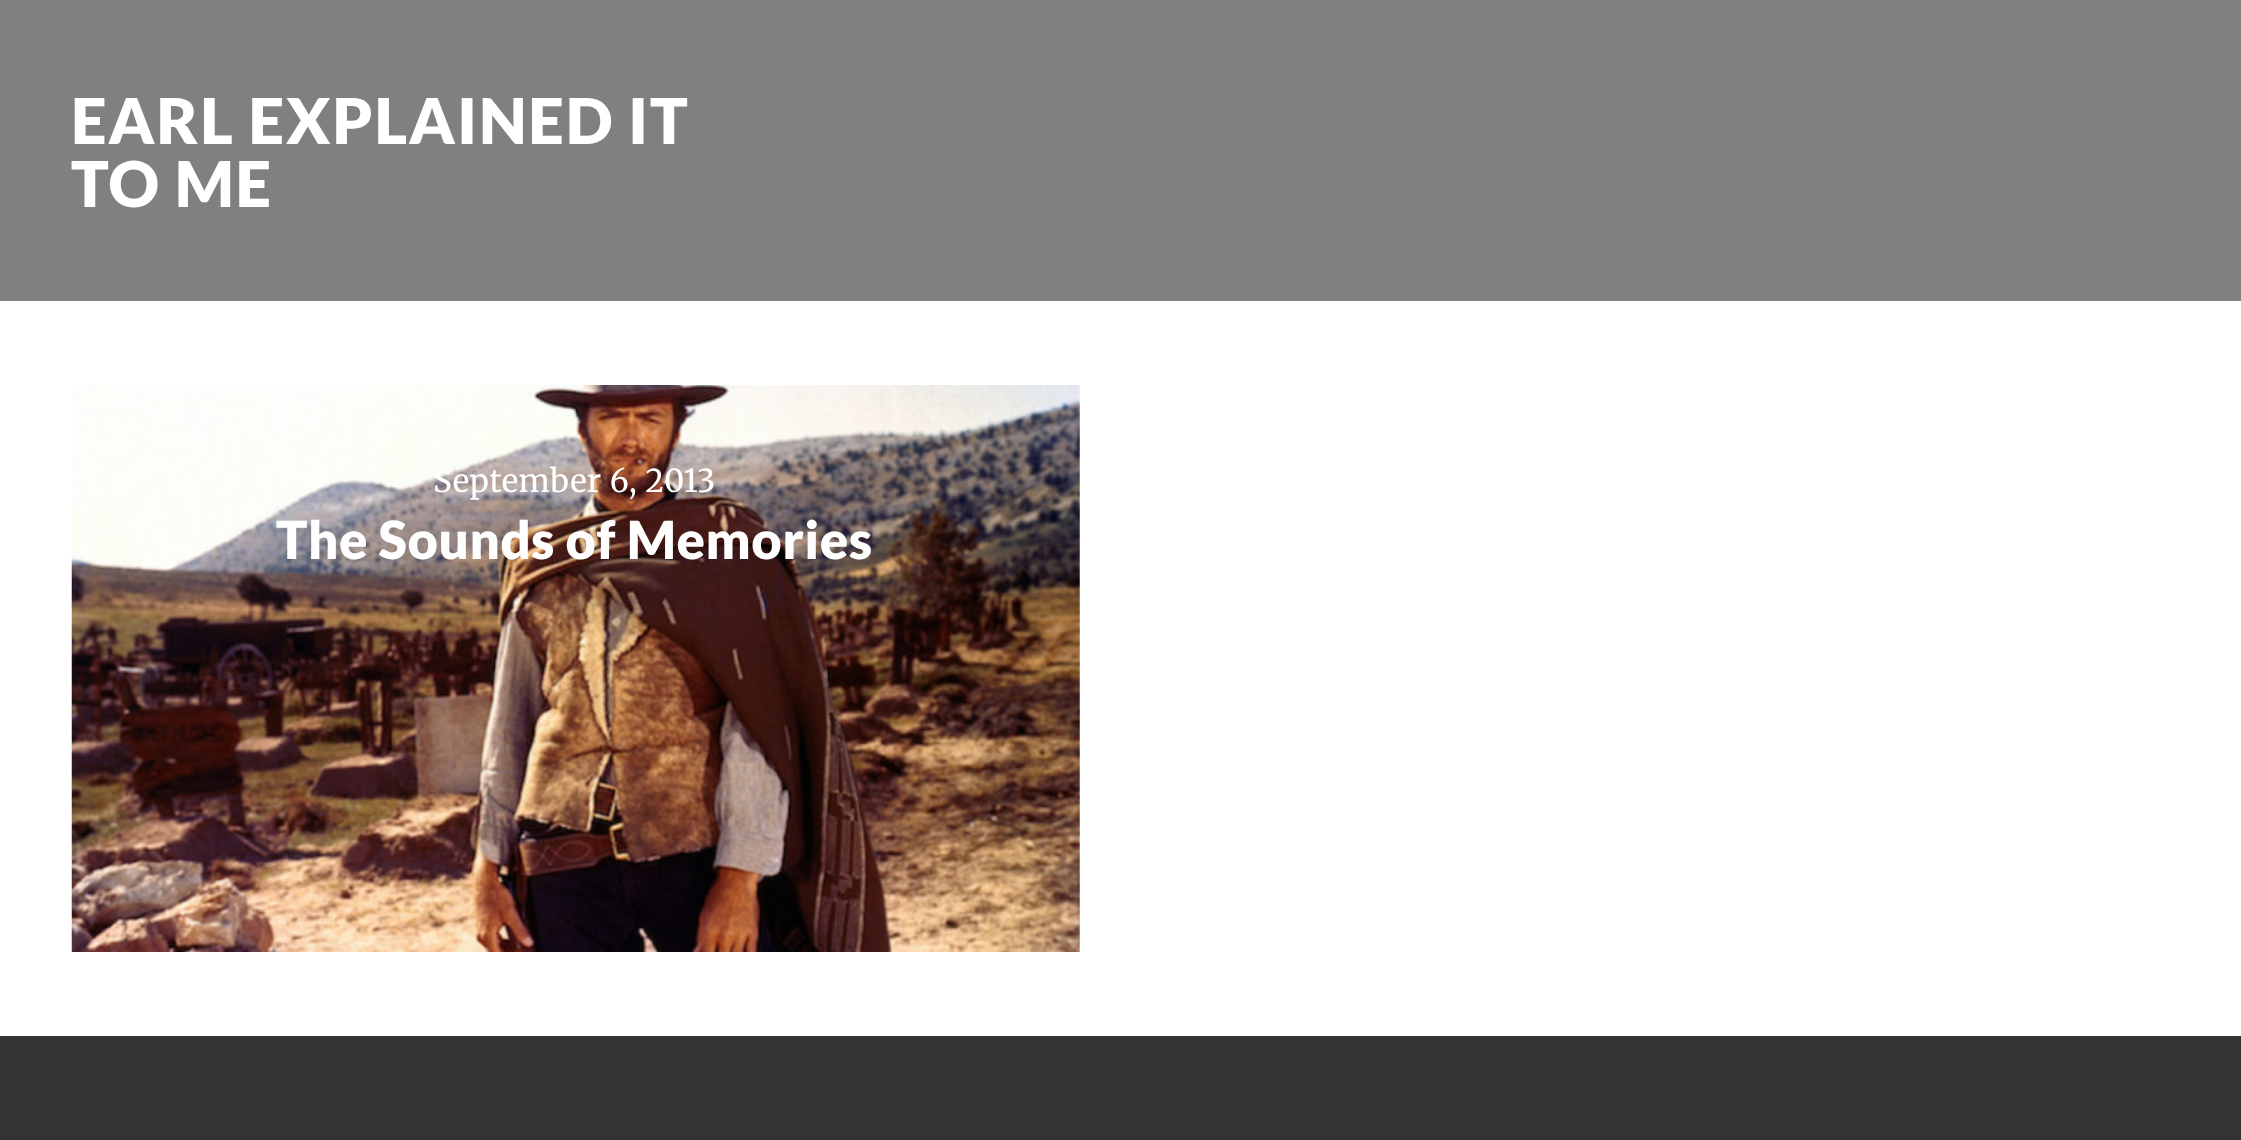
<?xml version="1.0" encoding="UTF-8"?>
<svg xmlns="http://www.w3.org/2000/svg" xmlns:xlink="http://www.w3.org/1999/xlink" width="2241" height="1140">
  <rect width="100%" height="100%" fill="#ffffff" />
  <rect width="2241" height="301" fill="#808080" />
  <image x="71" y="385" width="1009" height="567" xlink:href="image1.png" />
  <rect y="1036" width="2241" height="104" fill="#333333" />
  <text x="71" y="144" style="font-family: Lato; font-size: 63px; font-weight: 900; letter-spacing: 1.75px; fill: #ffffff">EARL EXPLAINED IT</text>
  <text x="71" y="207" style="font-family: Lato; font-size: 63px; font-weight: 900; letter-spacing: 1.75px; fill: #ffffff">TO ME</text>
  <text x="433" y="492" style="font-family: Merriweather; font-size: 31.5px; letter-spacing: 0.5px; fill: #ffffff">September 6, 2013</text>
  <text x="276" y="559" style="font-family: Lato; font-size: 52.5px; font-weight: 900; letter-spacing: 0.5px; fill: #ffffff">The Sounds of Memories</text>
</svg>
